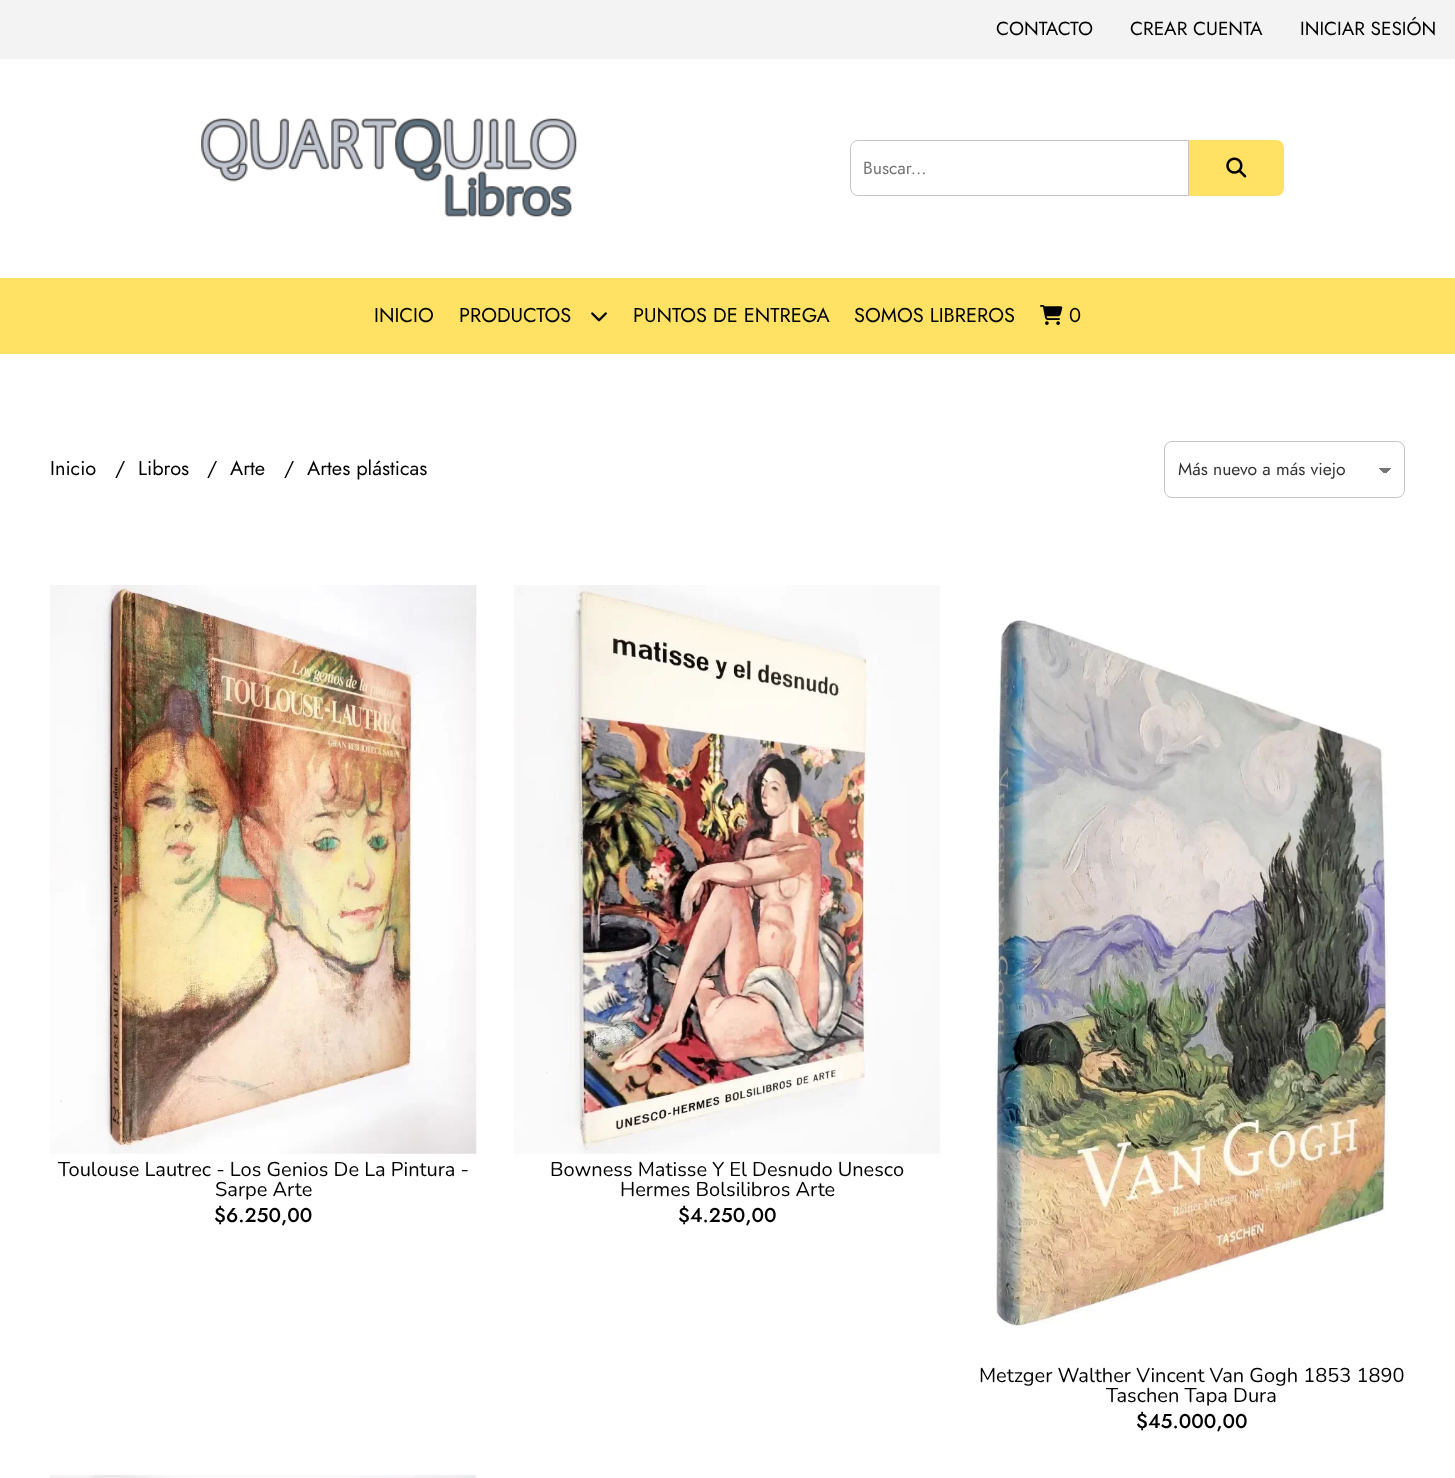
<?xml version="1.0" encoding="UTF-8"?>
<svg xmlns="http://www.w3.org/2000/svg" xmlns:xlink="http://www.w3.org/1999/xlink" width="1455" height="1478">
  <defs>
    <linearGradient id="g1" gradientUnits="userSpaceOnUse" x1="1385" y1="468" x2="1391" y2="474"><stop offset="0.5" stop-color="#757575" /><stop offset="0.5" stop-color="#ffffff" /></linearGradient>
    <linearGradient id="g2" gradientUnits="userSpaceOnUse" x1="1379" y1="474" x2="1385" y2="468"><stop offset="0.5" stop-color="#ffffff" /><stop offset="0.5" stop-color="#757575" /></linearGradient>
  </defs>
  <rect width="100%" height="100%" fill="#ffffff" />
  <rect width="1455" height="59" fill="#f3f3f3" />
  <image x="201" y="118" width="376" height="99" xlink:href="image1.png" />
  <path d="M 858 140.5 h 330.5 v 55 h -330.5 c -4 0 -7.5 -3.5 -7.5 -7.5 v -40 c 0 -4 3.5 -7.5 7.5 -7.5 z" fill="none" stroke="#c4c4c4" />
  <path d="M 1189 140 h 87 c 4.5 0 8 3.5 8 8 v 40 c 0 4.5 -3.5 8 -8 8 h -87 z" fill="#ffe164" />
  <image x="1226" y="157" width="21" height="21" xlink:href="image2.png" />
  <rect y="278" width="1455" height="76" fill="#ffe164" />
  <image x="591" y="312" width="16" height="10" xlink:href="image3.png" />
  <image x="1040" y="305" width="23" height="20" xlink:href="image4.png" />
  <rect x="1385" y="468" width="6" height="5" fill="url(#g1)" />
  <rect x="1379" y="468" width="6" height="5" fill="url(#g2)" />
  <rect x="1164.5" y="441.5" width="240" height="56" rx="7.5" fill="none" stroke="#c4c4c4" />
  <image x="50" y="585" width="427" height="569" xlink:href="image5.png" />
  <image x="514" y="585" width="426" height="569" xlink:href="image6.png" />
  <image x="995" y="619" width="393" height="707" xlink:href="image7.png" />
  <image x="50" y="1475" width="427" height="3" xlink:href="image8.png" />
  <text x="996" y="35" style="font-family: Jost; font-size: 19px; fill: #000000">CONTACTO</text>
  <text x="1130" y="35" style="font-family: Jost; font-size: 19px; fill: #000000">CREAR CUENTA</text>
  <text x="1300" y="35" style="font-family: Jost; font-size: 19px; fill: #000000">INICIAR SESIÓN</text>
  <text x="863" y="174" style="font-family: Jost; font-size: 17.5px; fill: #757575">Buscar...</text>
  <text x="374" y="322" style="font-family: Jost; font-size: 20px; fill: #000000">INICIO</text>
  <text x="459" y="322" style="font-family: Jost; font-size: 20px; fill: #000000">PRODUCTOS</text>
  <text x="633" y="322" style="font-family: Jost; font-size: 20px; fill: #000000">PUNTOS DE ENTREGA</text>
  <text x="854" y="322" style="font-family: Jost; font-size: 20px; fill: #000000">SOMOS LIBREROS</text>
  <text x="1069" y="322" style="font-family: Jost; font-size: 20px; fill: #000000">0</text>
  <text x="50" y="475" style="font-family: Jost; font-size: 20px; fill: #000000">Inicio</text>
  <text x="115" y="475" style="font-family: Jost; font-size: 20px; fill: #000000">/</text>
  <text x="138" y="475" style="font-family: Jost; font-size: 20px; fill: #000000">Libros</text>
  <text x="207" y="475" style="font-family: Jost; font-size: 20px; fill: #000000">/</text>
  <text x="230" y="475" style="font-family: Jost; font-size: 20px; fill: #000000">Arte</text>
  <text x="284" y="475" style="font-family: Jost; font-size: 20px; fill: #000000">/</text>
  <text x="307" y="475" style="font-family: Jost; font-size: 20px; fill: #000000">Artes plásticas</text>
  <text x="1178" y="475" style="font-family: Jost; font-size: 17.5px; fill: #333333">Más nuevo a más viejo</text>
  <text x="58" y="1176" style="font-family: Nunito; font-size: 20px; fill: #000000">Toulouse Lautrec - Los Genios De La Pintura -</text>
  <text x="215" y="1196" style="font-family: Nunito; font-size: 20px; fill: #000000">Sarpe Arte</text>
  <text x="214" y="1222" style="font-family: Jost; font-size: 20px; font-weight: 500; fill: #000000">$6.250,00</text>
  <text x="550" y="1176" style="font-family: Nunito; font-size: 20px; fill: #000000">Bowness Matisse Y El Desnudo Unesco</text>
  <text x="620" y="1196" style="font-family: Nunito; font-size: 20px; fill: #000000">Hermes Bolsilibros Arte</text>
  <text x="678" y="1222" style="font-family: Jost; font-size: 20px; font-weight: 500; fill: #000000">$4.250,00</text>
  <text x="979" y="1382" style="font-family: Nunito; font-size: 20px; fill: #000000">Metzger Walther Vincent Van Gogh 1853 1890</text>
  <text x="1106" y="1402" style="font-family: Nunito; font-size: 20px; fill: #000000">Taschen Tapa Dura</text>
  <text x="1136" y="1428" style="font-family: Jost; font-size: 20px; font-weight: 500; fill: #000000">$45.000,00</text>
</svg>
